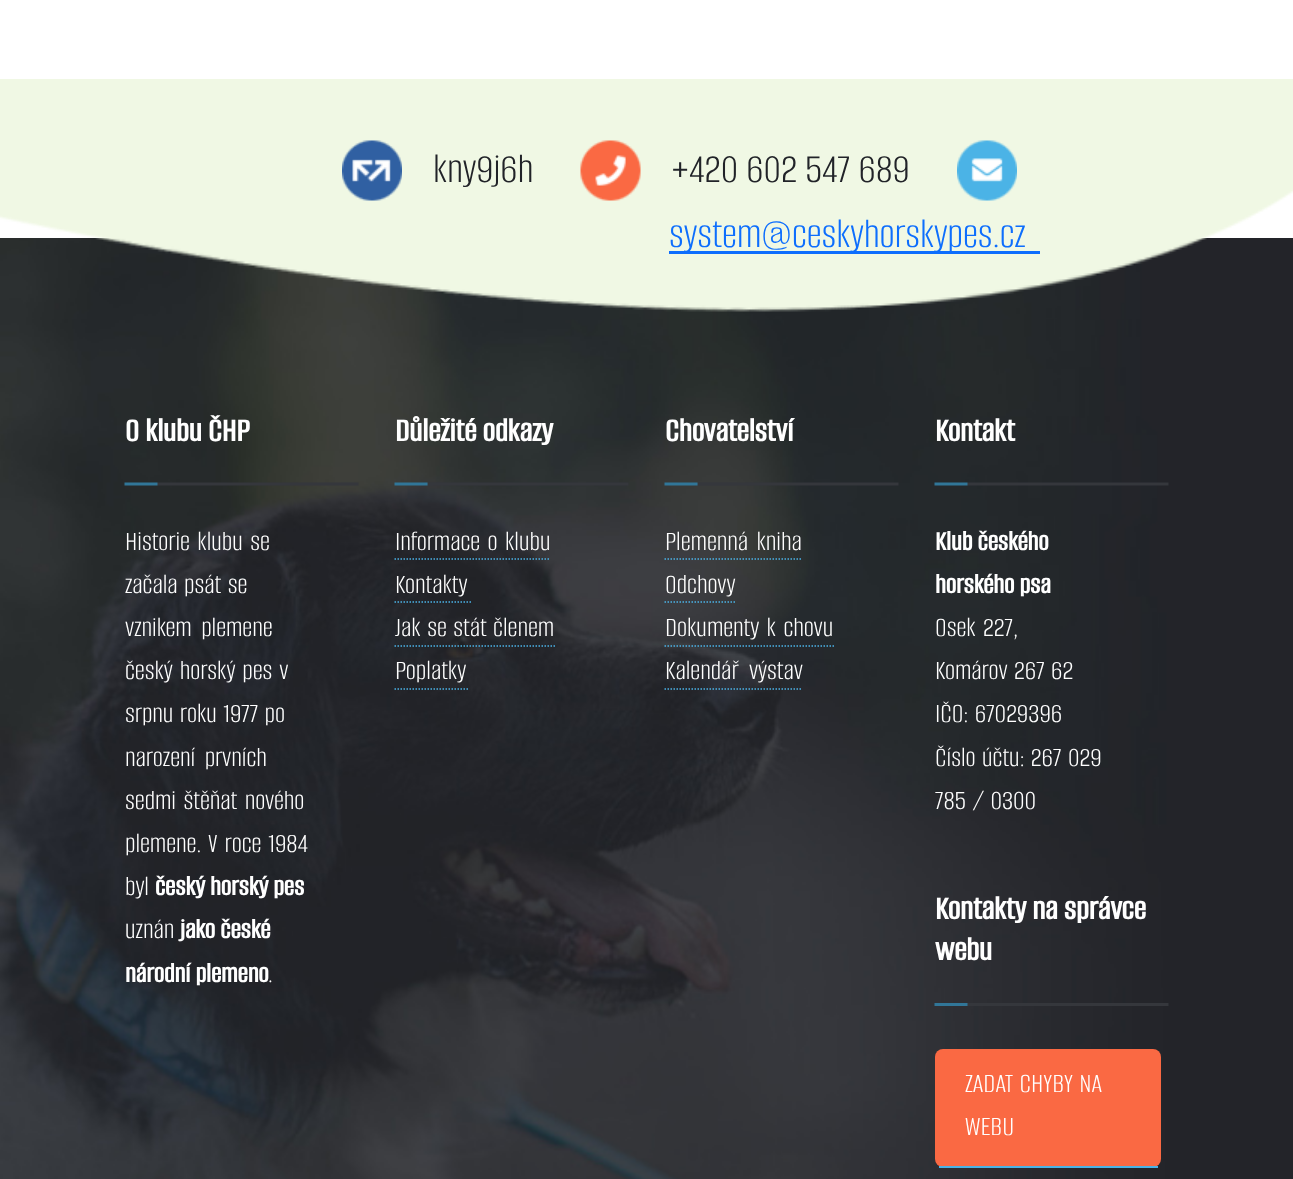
<?xml version="1.0" encoding="UTF-8"?>
<svg xmlns="http://www.w3.org/2000/svg" xmlns:xlink="http://www.w3.org/1999/xlink" width="1293" height="1179">
  <rect width="100%" height="100%" fill="#ffffff" />
  <image x="0" y="238" width="1293" height="941" xlink:href="image5.png" />
  <image x="0" y="79" width="1293" height="233" xlink:href="image1.png" />
  <image x="342" y="140" width="60" height="61" xlink:href="image2.png" />
  <image x="580" y="140" width="61" height="61" xlink:href="image3.png" />
  <image x="957" y="140" width="60" height="61" xlink:href="image4.png" />
  <rect x="669" y="251" width="371" height="3" fill="#0d6efd" />
  <image x="124" y="482" width="235" height="4" xlink:href="image6.png" />
  <image x="394" y="482" width="235" height="4" xlink:href="image7.png" />
  <path d="M 394.5 559 h 156" fill="none" stroke="#4bb3e6" stroke-width="1.5" stroke-dasharray="1.5 1.5" />
  <path d="M 394.5 602 h 76.5" fill="none" stroke="#4bb3e6" stroke-width="1.5" stroke-dasharray="1.5 1.5" />
  <path d="M 394.5 646 h 160.5" fill="none" stroke="#4bb3e6" stroke-width="1.5" stroke-dasharray="1.5 1.5" />
  <path d="M 394.5 689 h 73.5" fill="none" stroke="#4bb3e6" stroke-width="1.5" stroke-dasharray="1.5 1.5" />
  <image x="664" y="482" width="235" height="4" xlink:href="image8.png" />
  <path d="M 664.5 559 h 136.5" fill="none" stroke="#4bb3e6" stroke-width="1.5" stroke-dasharray="1.5 1.5" />
  <path d="M 664.5 602 h 72" fill="none" stroke="#4bb3e6" stroke-width="1.5" stroke-dasharray="1.5 1.5" />
  <path d="M 664.5 646 h 169.5" fill="none" stroke="#4bb3e6" stroke-width="1.5" stroke-dasharray="1.5 1.5" />
  <path d="M 664.5 689 h 138" fill="none" stroke="#4bb3e6" stroke-width="1.5" stroke-dasharray="1.5 1.5" />
  <image x="934" y="482" width="235" height="4" xlink:href="image9.png" />
  <image x="934" y="1003" width="235" height="3" xlink:href="image10.png" />
  <rect x="935" y="1049" width="226" height="118" rx="8" fill="#fa6943" />
  <rect x="939" y="1166" width="219" height="2" fill="#4bb3e6" />
  <text x="433" y="182" style="font-family: Alumni Sans; font-size: 43.25px; font-weight: 300; fill: #212328">kny9j6h</text>
  <text x="671" y="182" style="font-family: Alumni Sans; font-size: 43.25px; font-weight: 300; fill: #212328">+420 602 547 689</text>
  <text x="669" y="247" style="font-family: Alumni Sans; font-size: 43.25px; font-weight: 300; fill: #0d6efd">system@ceskyhorskypes.cz</text>
  <text x="125" y="441" style="font-family: Alumni Sans; font-size: 34.5px; font-weight: bold; fill: #ffffff">O klubu ČHP</text>
  <text x="125" y="550" word-spacing="2" style="font-family: Alumni Sans; font-size: 28.75px; font-weight: 300; fill: #ffffff">Historie klubu se</text>
  <text x="125" y="593" word-spacing="1" style="font-family: Alumni Sans; font-size: 28.75px; font-weight: 300; fill: #ffffff">začala psát se</text>
  <text x="125" y="636" word-spacing="4" style="font-family: Alumni Sans; font-size: 28.75px; font-weight: 300; fill: #ffffff">vznikem plemene</text>
  <text x="125" y="679" word-spacing="1.5" style="font-family: Alumni Sans; font-size: 28.75px; font-weight: 300; fill: #ffffff">český horský pes v</text>
  <text x="125" y="722" word-spacing="1" style="font-family: Alumni Sans; font-size: 28.75px; font-weight: 300; fill: #ffffff">srpnu roku 1977 po</text>
  <text x="125" y="766" word-spacing="4" style="font-family: Alumni Sans; font-size: 28.75px; font-weight: 300; fill: #ffffff">narození prvních</text>
  <text x="125" y="809" word-spacing="2" style="font-family: Alumni Sans; font-size: 28.75px; font-weight: 300; fill: #ffffff">sedmi štěňat nového</text>
  <text x="125" y="852" word-spacing="1.5" style="font-family: Alumni Sans; font-size: 28.75px; font-weight: 300; fill: #ffffff">plemene. V roce 1984</text>
  <text x="125" y="895" style="font-family: Alumni Sans; font-size: 28.75px; font-weight: 300; fill: #ffffff">byl</text>
  <text x="155" y="895" style="font-family: Alumni Sans; font-size: 28.75px; font-weight: bold; fill: #ffffff">český horský pes</text>
  <text x="125" y="938" style="font-family: Alumni Sans; font-size: 28.75px; font-weight: 300; fill: #ffffff">uznán</text>
  <text x="180" y="938" style="font-family: Alumni Sans; font-size: 28.75px; font-weight: bold; fill: #ffffff">jako české</text>
  <text x="125" y="982" style="font-family: Alumni Sans; font-size: 28.75px; font-weight: bold; fill: #ffffff">národní plemeno</text>
  <text x="268" y="982" style="font-family: Alumni Sans; font-size: 28.75px; font-weight: 300; fill: #ffffff">.</text>
  <text x="395" y="441" style="font-family: Alumni Sans; font-size: 34.5px; font-weight: bold; fill: #ffffff">Důležité odkazy</text>
  <text x="395" y="550" word-spacing="2" style="font-family: Alumni Sans; font-size: 28.75px; font-weight: 300; fill: #ffffff">Informace o klubu</text>
  <text x="395" y="593" style="font-family: Alumni Sans; font-size: 28.75px; font-weight: 300; fill: #ffffff">Kontakty</text>
  <text x="395" y="636" word-spacing="1" style="font-family: Alumni Sans; font-size: 28.75px; font-weight: 300; fill: #ffffff">Jak se stát členem</text>
  <text x="395" y="679" style="font-family: Alumni Sans; font-size: 28.75px; font-weight: 300; fill: #ffffff">Poplatky</text>
  <text x="665" y="441" style="font-family: Alumni Sans; font-size: 34.5px; font-weight: bold; fill: #ffffff">Chovatelství</text>
  <text x="665" y="550" word-spacing="3" style="font-family: Alumni Sans; font-size: 28.75px; font-weight: 300; fill: #ffffff">Plemenná kniha</text>
  <text x="665" y="593" style="font-family: Alumni Sans; font-size: 28.75px; font-weight: 300; fill: #ffffff">Odchovy</text>
  <text x="665" y="636" word-spacing="2" style="font-family: Alumni Sans; font-size: 28.75px; font-weight: 300; fill: #ffffff">Dokumenty k chovu</text>
  <text x="665" y="679" word-spacing="5" style="font-family: Alumni Sans; font-size: 28.75px; font-weight: 300; fill: #ffffff">Kalendář výstav</text>
  <text x="935" y="441" style="font-family: Alumni Sans; font-size: 34.5px; font-weight: bold; fill: #ffffff">Kontakt</text>
  <text x="935" y="550" style="font-family: Alumni Sans; font-size: 28.75px; font-weight: bold; fill: #ffffff">Klub českého</text>
  <text x="935" y="593" style="font-family: Alumni Sans; font-size: 28.75px; font-weight: bold; fill: #ffffff">horského psa</text>
  <text x="935" y="636" word-spacing="2" style="font-family: Alumni Sans; font-size: 28.75px; font-weight: 300; fill: #ffffff">Osek 227,</text>
  <text x="935" y="679" word-spacing="1" style="font-family: Alumni Sans; font-size: 28.75px; font-weight: 300; fill: #ffffff">Komárov 267 62</text>
  <text x="935" y="722" word-spacing="1" style="font-family: Alumni Sans; font-size: 28.75px; font-weight: 300; fill: #ffffff">IČO: 67029396</text>
  <text x="935" y="766" word-spacing="1" style="font-family: Alumni Sans; font-size: 28.75px; font-weight: 300; fill: #ffffff">Číslo účtu: 267 029</text>
  <text x="935" y="809" style="font-family: Alumni Sans; font-size: 28.75px; font-weight: 300; fill: #ffffff">785 / 0300</text>
  <text x="935" y="919" style="font-family: Alumni Sans; font-size: 34.5px; font-weight: bold; fill: #ffffff">Kontakty na správce</text>
  <text x="935" y="960" style="font-family: Alumni Sans; font-size: 34.5px; font-weight: bold; fill: #ffffff">webu</text>
  <text x="965" y="1092" word-spacing="1" style="font-family: Alumni Sans; font-size: 28.75px; font-weight: 300; fill: #ffffff">ZADAT CHYBY NA</text>
  <text x="965" y="1135" style="font-family: Alumni Sans; font-size: 28.75px; font-weight: 300; fill: #ffffff">WEBU</text>
</svg>
